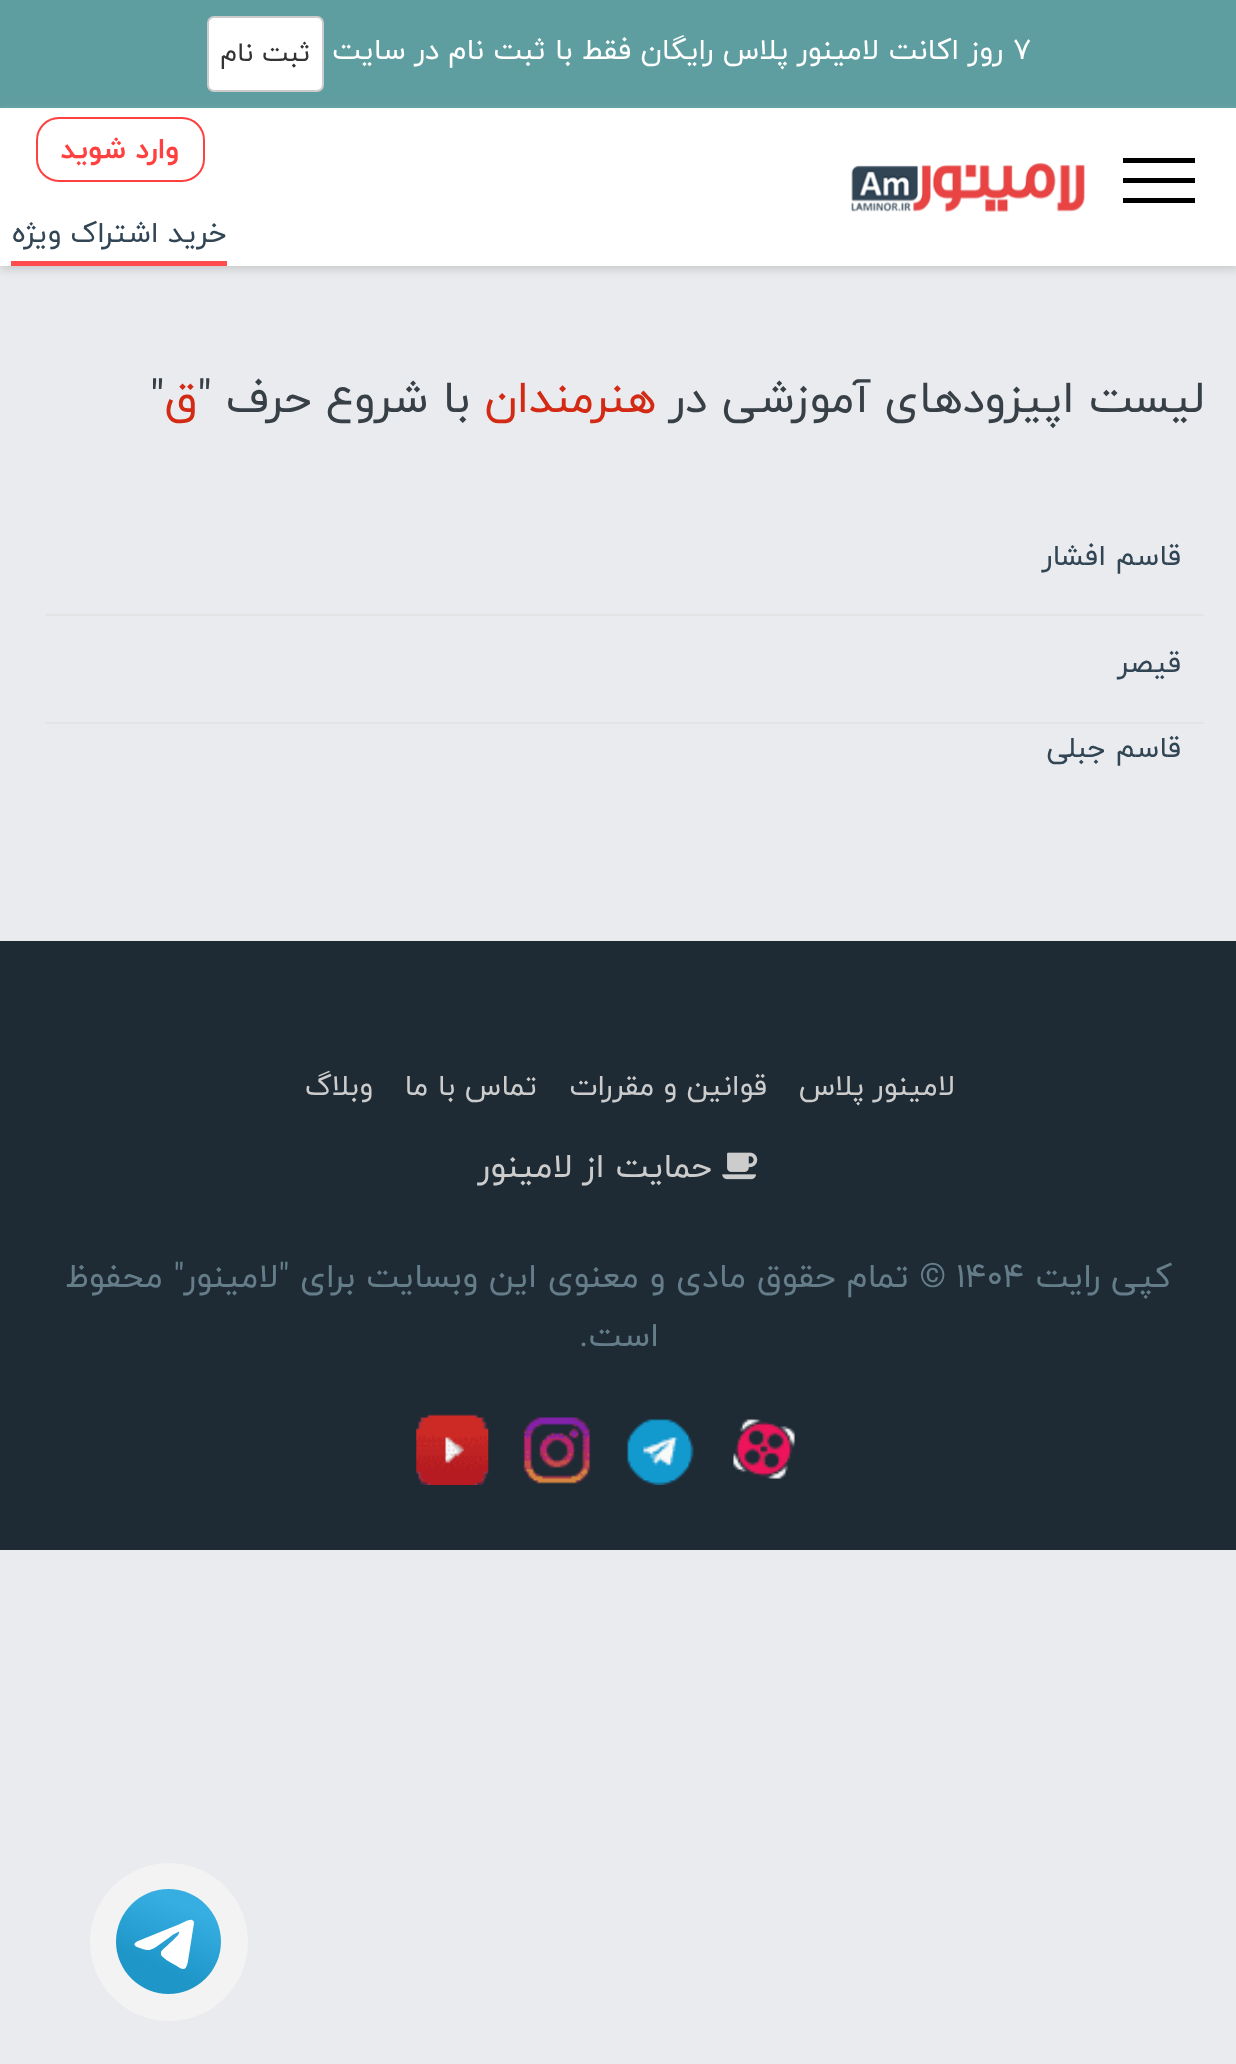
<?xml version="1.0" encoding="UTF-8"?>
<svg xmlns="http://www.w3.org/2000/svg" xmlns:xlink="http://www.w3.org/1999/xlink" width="1236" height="2064">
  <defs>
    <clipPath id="clip1"><path d="M 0 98 h 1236 v 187 h -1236 z m 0 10 h 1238 v 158 h -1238 z" clip-rule="evenodd" /></clipPath>
    <linearGradient id="g1" gradientUnits="userSpaceOnUse" x1="186" y1="1907" x2="160" y2="1968"><stop offset="0" stop-color="#37aee2" /><stop offset="1" stop-color="#1e96c8" /></linearGradient>
  </defs>
  <rect width="100%" height="100%" fill="#ffffff" />
  <rect y="266" width="1236" height="1798" fill="#e9ebee" />
  <rect width="1236" height="108" fill="#5f9ea0" />
  <rect x="208" y="17" width="115" height="74" rx="6" fill="#ffffff" stroke="#cccccc" stroke-width="2" />
  <g clip-path="url(#clip1)">
    <rect y="113" width="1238" height="157" fill="#cccccc" filter="blur(4.5px)" />
  </g>
  <rect x="37" y="118" width="167" height="63" rx="22" fill="none" stroke="#ff4040" stroke-width="2" />
  <rect x="1123" y="158" width="72" height="5" fill="#000000" />
  <rect x="1123" y="178" width="72" height="5" fill="#000000" />
  <rect x="1123" y="198" width="72" height="5" fill="#000000" />
  <image x="851" y="163" width="234" height="49" xlink:href="image1.png" />
  <rect x="11" y="261" width="216" height="5" fill="#ff4d4d" />
  <rect x="45" y="614" width="1159" height="2" fill="#e4e4e4" />
  <rect x="45" y="722" width="1159" height="2" fill="#e4e4e4" />
  <circle cx="169" cy="1942" r="79" fill="#f3f3f3" />
  <circle cx="168.5" cy="1941.5" r="52.5" fill="url(#g1)" />
  <path d="M 138 1941 l 42 -17 c 2 -1 10 -5 12 -4 c 2 1 2 2 2 3 l -6 38 c -2 11 -5 9 -13 4 c -4 -2 -12 -7 -14 -10 v -3 c 1 -3 20 -17 18 -20 c 0 -1 -8 4 -9 5 l -14 10 c -8 5 -10 3 -19 0 c -4 -2 -3 -4 1 -6 z" fill="#ffffff" />
  <rect y="941" width="1236" height="609" fill="#1e2b35" />
  <image x="722" y="1152" width="36" height="28" xlink:href="image2.png" />
  <image x="733" y="1419" width="62" height="60" xlink:href="image3.png" />
  <image x="627" y="1419" width="67" height="66" xlink:href="image4.png" />
  <image x="523" y="1417" width="68" height="67" xlink:href="image5.png" />
  <image x="416" y="1414" width="73" height="71" xlink:href="image6.png" />
  <text x="1013" y="59" style="font-family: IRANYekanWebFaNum; font-size: 29.25px; fill: #ffffff">7</text>
  <text x="1003" y="59" style="font-family: IRANYekanWebFaNum; font-size: 29.25px; direction: rtl; fill: #ffffff">روز اکانت لامینور پلاس رایگان فقط با ثبت نام در سایت</text>
  <text x="310" y="61" style="font-family: IRANYekanWebFaNum; font-size: 27px; direction: rtl; fill: #333333">ثبت نام</text>
  <text x="179" y="158" style="font-family: IRANYekanWebFaNum; font-size: 29.25px; font-weight: bold; direction: rtl; fill: #ff4040">وارد شوید</text>
  <text x="227" y="242" style="font-family: IRANYekanWebFaNum; font-size: 29.25px; direction: rtl; fill: #314555">خرید اشتراک ویژه</text>
  <text x="1204" y="412" style="font-family: IRANYekanWebFaNum; font-size: 45px; direction: rtl; fill: #384047">لیست اپیزودهای آموزشی</text>
  <text x="707" y="412" style="font-family: IRANYekanWebFaNum; font-size: 45px; direction: rtl; fill: #384047">در</text>
  <text x="656" y="412" style="font-family: IRANYekanWebFaNum; font-size: 45px; direction: rtl; fill: #d22a15">هنرمندان</text>
  <text x="470" y="412" style="font-family: IRANYekanWebFaNum; font-size: 45px; direction: rtl; fill: #384047">با شروع حرف "</text>
  <text x="197" y="412" style="font-family: IRANYekanWebFaNum; font-size: 45px; direction: rtl; fill: #d22a15">ق</text>
  <text x="150" y="412" style="font-family: IRANYekanWebFaNum; font-size: 45px; fill: #384047">"</text>
  <text x="1181" y="565" style="font-family: IRANYekanWebFaNum; font-size: 29.25px; direction: rtl; fill: #314555">قاسم افشار</text>
  <text x="1181" y="672" style="font-family: IRANYekanWebFaNum; font-size: 29.25px; direction: rtl; fill: #314555">قیصر</text>
  <text x="1181" y="757" style="font-family: IRANYekanWebFaNum; font-size: 29.25px; direction: rtl; fill: #314555">قاسم جبلی</text>
  <text x="955" y="1095" style="font-family: IRANYekanWebFaNum; font-size: 29.25px; direction: rtl; fill: #cccccc">لامینور پلاس</text>
  <text x="767" y="1095" style="font-family: IRANYekanWebFaNum; font-size: 29.25px; direction: rtl; fill: #cccccc">قوانین و مقررات</text>
  <text x="537" y="1095" style="font-family: IRANYekanWebFaNum; font-size: 29.25px; direction: rtl; fill: #cccccc">تماس با ما</text>
  <text x="373" y="1095" style="font-family: IRANYekanWebFaNum; font-size: 29.25px; direction: rtl; fill: #cccccc">وبلاگ</text>
  <text x="712" y="1177" style="font-family: IRANYekanWebFaNum; font-size: 33.75px; direction: rtl; fill: #cccccc">حمایت از لامینور</text>
  <text x="1172" y="1287" style="font-family: IRANYekanWebFaNum; font-size: 33.75px; direction: rtl; fill: #647d89">کپی رایت</text>
  <text x="956" y="1287" style="font-family: IRANYekanWebFaNum; font-size: 33.75px; fill: #647d89">1404</text>
  <text x="946" y="1287" style="font-family: IRANYekanWebFaNum; font-size: 33.75px; direction: rtl; fill: #647d89">© تمام حقوق مادی و معنوی این وبسایت برای "لامینور" محفوظ</text>
  <text x="659" y="1346" style="font-family: IRANYekanWebFaNum; font-size: 33.75px; direction: rtl; fill: #647d89">است.</text>
</svg>
